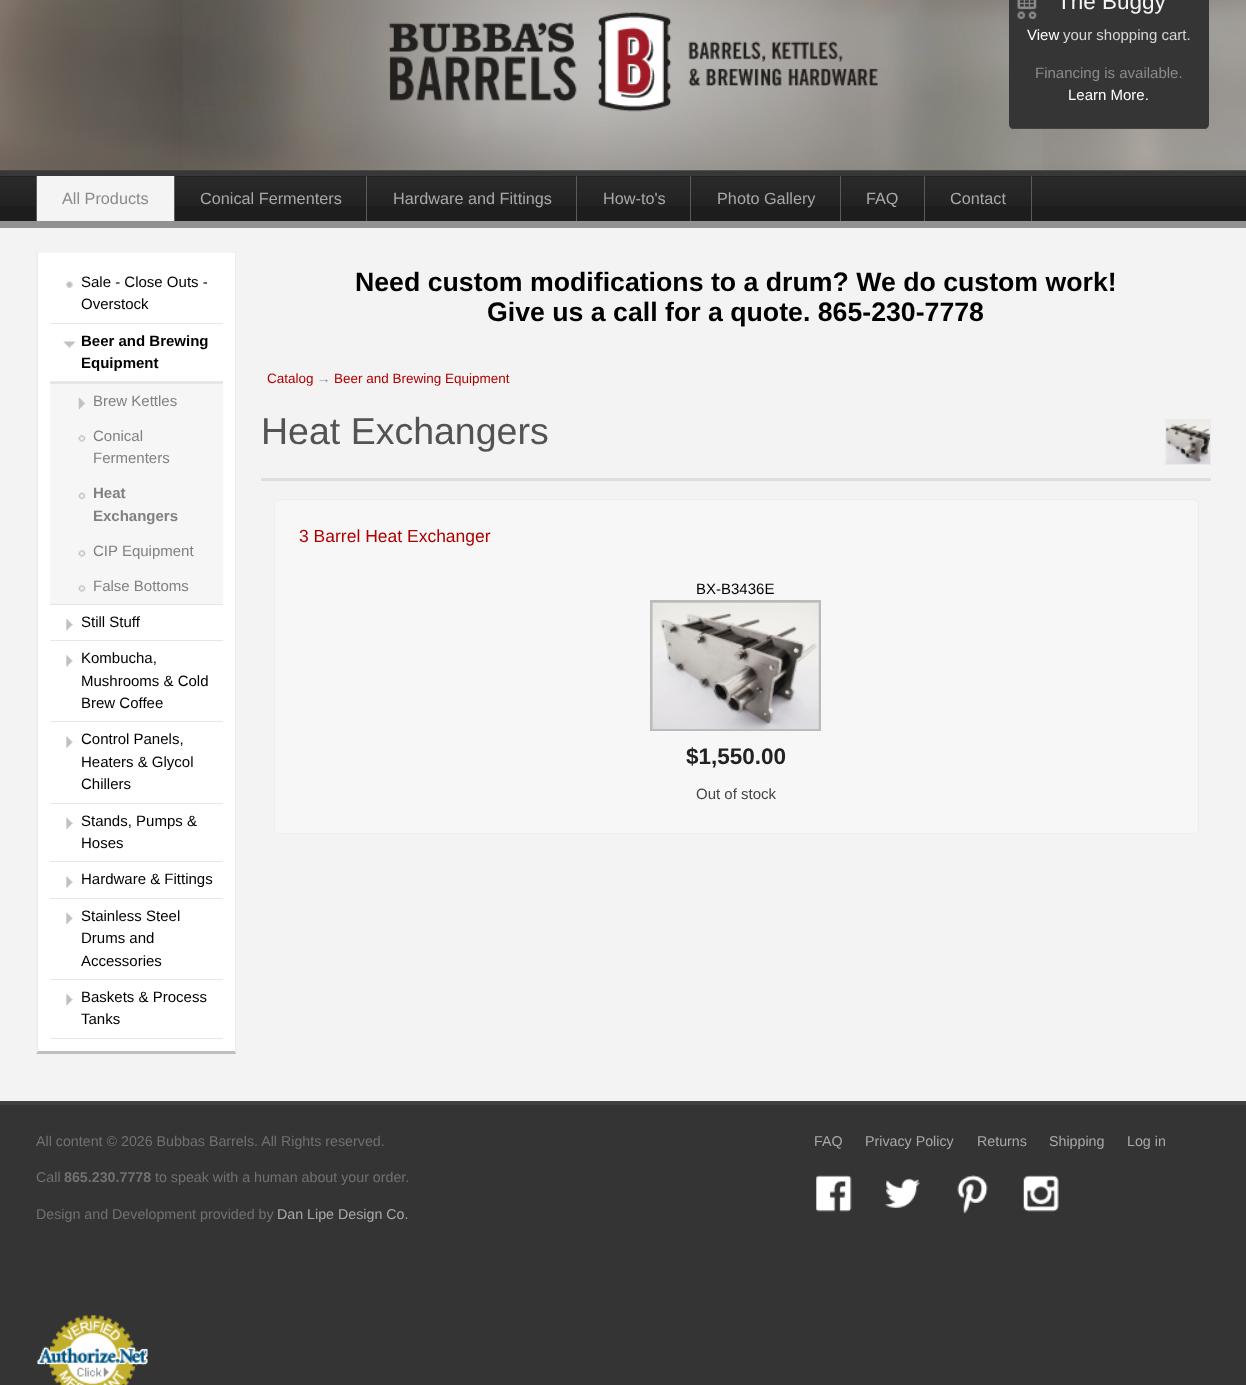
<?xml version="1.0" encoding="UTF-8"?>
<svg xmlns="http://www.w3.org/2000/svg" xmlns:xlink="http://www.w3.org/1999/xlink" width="1246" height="1385">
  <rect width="100%" height="100%" fill="#f3f3f3" />
  <rect y="170" width="1246" height="6" fill="#383838" />
  <image x="0" y="0" width="1246" height="171" xlink:href="image1.png" />
  <image x="183" y="0" width="860" height="171" xlink:href="image2.png" />
  <rect x="1009" y="-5" width="200" height="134" rx="5" fill="#353535" />
  <path d="M 1012 129 c -2 -1 -3 -3 -3 -5 c 0 2 2 4 5 4 h 190 c 2 0 4 -1 5 -3 l -1 2 l -2 2 z" fill="#434343" />
  <image x="1017" y="0" width="20" height="19" xlink:href="image3.png" />
  <rect y="176" width="1246" height="45" fill="#1d1d1d" />
  <image x="0" y="176" width="1246" height="30" xlink:href="image4.png" />
  <rect y="221" width="1246" height="7" fill="#929292" />
  <rect x="37" y="176" width="137" height="45" fill="#f4f4f4" />
  <rect x="36" y="176" width="1" height="45" fill="#5b5b5b" />
  <rect x="174" y="176" width="1" height="45" fill="#5b5b5b" />
  <rect x="366" y="176" width="1" height="45" fill="#5b5b5b" />
  <rect x="576" y="176" width="1" height="45" fill="#5b5b5b" />
  <rect x="690" y="176" width="1" height="45" fill="#5b5b5b" />
  <rect x="840" y="176" width="1" height="45" fill="#5b5b5b" />
  <rect x="1031" y="176" width="1" height="45" fill="#5b5b5b" />
  <rect x="924" y="176" width="1" height="45" fill="#5b5b5b" />
  <rect x="36" y="253" width="200" height="801" fill="#ffffff" />
  <path d="M 236 252 v 802 l -1 -3 v -799 z" fill="#ededed" />
  <path d="M 236 1054 h -200 l 2 -3 h 197 z" fill="#bfbfbf" />
  <path d="M 36 1054 v -802 h 2 v 799 z" fill="#ededed" />
  <image x="66" y="281" width="7" height="7" xlink:href="image5.png" />
  <rect x="50" y="323" width="173" height="1" fill="#e8e7e7" />
  <image x="63" y="341" width="13" height="7" xlink:href="image6.png" />
  <rect x="50" y="384" width="173" height="220" fill="#f6f6f6" />
  <rect x="50" y="381" width="173" height="3" fill="#e6e6e6" />
  <rect x="50" y="604" width="173" height="1" fill="#e6e6e6" />
  <image x="78" y="397" width="8" height="13" xlink:href="image7.png" />
  <image x="78" y="435" width="8" height="7" xlink:href="image8.png" />
  <image x="78" y="492" width="8" height="8" xlink:href="image9.png" />
  <image x="78" y="550" width="8" height="7" xlink:href="image8.png" />
  <image x="78" y="585" width="8" height="7" xlink:href="image8.png" />
  <image x="66" y="619" width="7" height="12" xlink:href="image10.png" />
  <rect x="50" y="640" width="173" height="1" fill="#e8e7e7" />
  <image x="66" y="655" width="7" height="12" xlink:href="image11.png" />
  <rect x="50" y="721" width="173" height="1" fill="#e8e7e7" />
  <image x="66" y="736" width="7" height="12" xlink:href="image12.png" />
  <rect x="50" y="803" width="173" height="1" fill="#e8e7e7" />
  <image x="66" y="817" width="7" height="13" xlink:href="image13.png" />
  <rect x="50" y="861" width="173" height="1" fill="#e8e7e7" />
  <image x="66" y="876" width="7" height="12" xlink:href="image14.png" />
  <rect x="50" y="898" width="173" height="1" fill="#e8e7e7" />
  <image x="66" y="912" width="7" height="13" xlink:href="image13.png" />
  <rect x="50" y="979" width="173" height="1" fill="#e8e7e7" />
  <image x="66" y="994" width="7" height="12" xlink:href="image10.png" />
  <rect x="50" y="1038" width="173" height="1" fill="#e8e7e7" />
  <rect x="1165.5" y="419.5" width="45" height="45" fill="none" stroke="#ebe9e9" />
  <image x="1166" y="420" width="44" height="44" xlink:href="image15.png" />
  <rect x="261" y="478" width="950" height="3" fill="#dedede" />
  <rect x="274.5" y="499.5" width="924" height="334" rx="4.5" fill="#f7f7f7" stroke="#ededed" />
  <rect x="651.5" y="601.5" width="168" height="128" fill="none" stroke="#bbbbbb" stroke-width="3" />
  <image x="652" y="602" width="167" height="127" xlink:href="image16.png" />
  <rect y="1105" width="1246" height="280" fill="#343434" />
  <rect y="1101" width="1246" height="4" fill="#404040" />
  <image x="37" y="1315" width="111" height="70" xlink:href="image17.png" />
  <image x="816" y="1175" width="36" height="37" xlink:href="image18.png" />
  <image x="885" y="1178" width="36" height="30" xlink:href="image19.png" />
  <image x="957" y="1175" width="31" height="39" xlink:href="image20.png" />
  <image x="1023" y="1175" width="36" height="37" xlink:href="image21.png" />
  <text x="1057" y="9" style="font-family: Liberation Sans; font-size: 22.5px; fill: #f5f5f5">The Buggy</text>
  <text x="1027" y="40" style="font-family: Liberation Sans; font-size: 15px; fill: #ffffff">View</text>
  <text x="1063" y="40" style="font-family: Liberation Sans; font-size: 15px; fill: #d7d7d7">your shopping cart.</text>
  <text x="1035" y="78" style="font-family: Liberation Sans; font-size: 15px; fill: #8b8b8b">Financing is available.</text>
  <text x="1068" y="100" style="font-family: Liberation Sans; font-size: 15px; fill: #ffffff">Learn More.</text>
  <text x="62" y="204" style="font-family: Liberation Sans; font-size: 16.25px; fill: #8b8b8b">All Products</text>
  <text x="200" y="204" style="font-family: Liberation Sans; font-size: 16.25px; fill: #a9a9a9">Conical Fermenters</text>
  <text x="393" y="204" style="font-family: Liberation Sans; font-size: 16.25px; fill: #a9a9a9">Hardware and Fittings</text>
  <text x="603" y="204" style="font-family: Liberation Sans; font-size: 16.25px; fill: #a9a9a9">How-to's</text>
  <text x="717" y="204" style="font-family: Liberation Sans; font-size: 16.25px; fill: #a9a9a9">Photo Gallery</text>
  <text x="866" y="204" style="font-family: Liberation Sans; font-size: 16.25px; fill: #a9a9a9">FAQ</text>
  <text x="950" y="204" style="font-family: Liberation Sans; font-size: 16.25px; fill: #a9a9a9">Contact</text>
  <text x="81" y="287" style="font-family: Liberation Sans; font-size: 15px; fill: #000000">Sale - Close Outs -</text>
  <text x="81" y="309" style="font-family: Liberation Sans; font-size: 15px; fill: #000000">Overstock</text>
  <text x="81" y="346" style="font-family: Liberation Sans; font-size: 15px; font-weight: bold; fill: #000000">Beer and Brewing</text>
  <text x="81" y="368" style="font-family: Liberation Sans; font-size: 15px; font-weight: bold; fill: #000000">Equipment</text>
  <text x="93" y="406" style="font-family: Liberation Sans; font-size: 15px; fill: #818181">Brew Kettles</text>
  <text x="93" y="441" style="font-family: Liberation Sans; font-size: 15px; fill: #818181">Conical</text>
  <text x="93" y="463" style="font-family: Liberation Sans; font-size: 15px; fill: #818181">Fermenters</text>
  <text x="93" y="498" style="font-family: Liberation Sans; font-size: 15px; font-weight: bold; fill: #818181">Heat</text>
  <text x="93" y="521" style="font-family: Liberation Sans; font-size: 15px; font-weight: bold; fill: #818181">Exchangers</text>
  <text x="93" y="556" style="font-family: Liberation Sans; font-size: 15px; fill: #818181">CIP Equipment</text>
  <text x="93" y="591" style="font-family: Liberation Sans; font-size: 15px; fill: #818181">False Bottoms</text>
  <text x="81" y="627" style="font-family: Liberation Sans; font-size: 15px; fill: #000000">Still Stuff</text>
  <text x="81" y="663" style="font-family: Liberation Sans; font-size: 15px; fill: #000000">Kombucha,</text>
  <text x="81" y="686" style="font-family: Liberation Sans; font-size: 15px; fill: #000000">Mushrooms &amp; Cold</text>
  <text x="81" y="708" style="font-family: Liberation Sans; font-size: 15px; fill: #000000">Brew Coffee</text>
  <text x="81" y="744" style="font-family: Liberation Sans; font-size: 15px; fill: #000000">Control Panels,</text>
  <text x="81" y="767" style="font-family: Liberation Sans; font-size: 15px; fill: #000000">Heaters &amp; Glycol</text>
  <text x="81" y="789" style="font-family: Liberation Sans; font-size: 15px; fill: #000000">Chillers</text>
  <text x="81" y="826" style="font-family: Liberation Sans; font-size: 15px; fill: #000000">Stands, Pumps &amp;</text>
  <text x="81" y="848" style="font-family: Liberation Sans; font-size: 15px; fill: #000000">Hoses</text>
  <text x="81" y="884" style="font-family: Liberation Sans; font-size: 15px; fill: #000000">Hardware &amp; Fittings</text>
  <text x="81" y="921" style="font-family: Liberation Sans; font-size: 15px; fill: #000000">Stainless Steel</text>
  <text x="81" y="943" style="font-family: Liberation Sans; font-size: 15px; fill: #000000">Drums and</text>
  <text x="81" y="966" style="font-family: Liberation Sans; font-size: 15px; fill: #000000">Accessories</text>
  <text x="81" y="1002" style="font-family: Liberation Sans; font-size: 15px; fill: #000000">Baskets &amp; Process</text>
  <text x="81" y="1024" style="font-family: Liberation Sans; font-size: 15px; fill: #000000">Tanks</text>
  <text x="355" y="291" style="font-family: Liberation Sans; font-size: 26.7px; font-weight: bold; fill: #000000">Need custom modifications to a drum? We do custom work!</text>
  <text x="487" y="321" style="font-family: Liberation Sans; font-size: 26.7px; font-weight: bold; fill: #000000">Give us a call for a quote. 865-230-7778</text>
  <text x="267" y="383" style="font-family: Liberation Sans; font-size: 13.5px; fill: #af0000">Catalog</text>
  <text x="317" y="383" style="font-family: Liberation Sans; font-size: 13.5px; fill: #8b8b8b">→</text>
  <text x="334" y="383" style="font-family: Liberation Sans; font-size: 13.5px; fill: #af0000">Beer and Brewing Equipment</text>
  <text x="261" y="444" style="font-family: Liberation Sans; font-size: 37.5px; fill: #535353">Heat Exchangers</text>
  <text x="299" y="542" style="font-family: Liberation Sans; font-size: 17.5px; fill: #af0000">3 Barrel Heat Exchanger</text>
  <text x="696" y="594" style="font-family: Liberation Sans; font-size: 15px; fill: #000000">BX-B3436E</text>
  <text x="686" y="764" style="font-family: Liberation Sans; font-size: 22.5px; font-weight: bold; fill: #222222">$1,550.00</text>
  <text x="696" y="799" style="font-family: Liberation Sans; font-size: 15px; fill: #444444">Out of stock</text>
  <text x="36" y="1146" style="font-family: Liberation Sans; font-size: 14.25px; fill: #727171">All content © 2026 Bubbas Barrels. All Rights reserved.</text>
  <text x="36" y="1182" style="font-family: Liberation Sans; font-size: 14.25px; fill: #727171">Call</text>
  <text x="64" y="1182" style="font-family: Liberation Sans; font-size: 14.25px; font-weight: bold; fill: #727171">865.230.7778</text>
  <text x="155" y="1182" style="font-family: Liberation Sans; font-size: 14.25px; fill: #727171">to speak with a human about your order.</text>
  <text x="36" y="1219" style="font-family: Liberation Sans; font-size: 14.25px; fill: #727171">Design and Development provided by</text>
  <text x="277" y="1219" style="font-family: Liberation Sans; font-size: 14.25px; fill: #a9a9a9">Dan Lipe Design Co.</text>
  <text x="814" y="1146" style="font-family: Liberation Sans; font-size: 14.25px; fill: #a9a9a9">FAQ</text>
  <text x="865" y="1146" style="font-family: Liberation Sans; font-size: 14.25px; fill: #a9a9a9">Privacy Policy</text>
  <text x="977" y="1146" style="font-family: Liberation Sans; font-size: 14.25px; fill: #a9a9a9">Returns</text>
  <text x="1049" y="1146" style="font-family: Liberation Sans; font-size: 14.25px; fill: #a9a9a9">Shipping</text>
  <text x="1127" y="1146" style="font-family: Liberation Sans; font-size: 14.25px; fill: #a9a9a9">Log in</text>
</svg>
